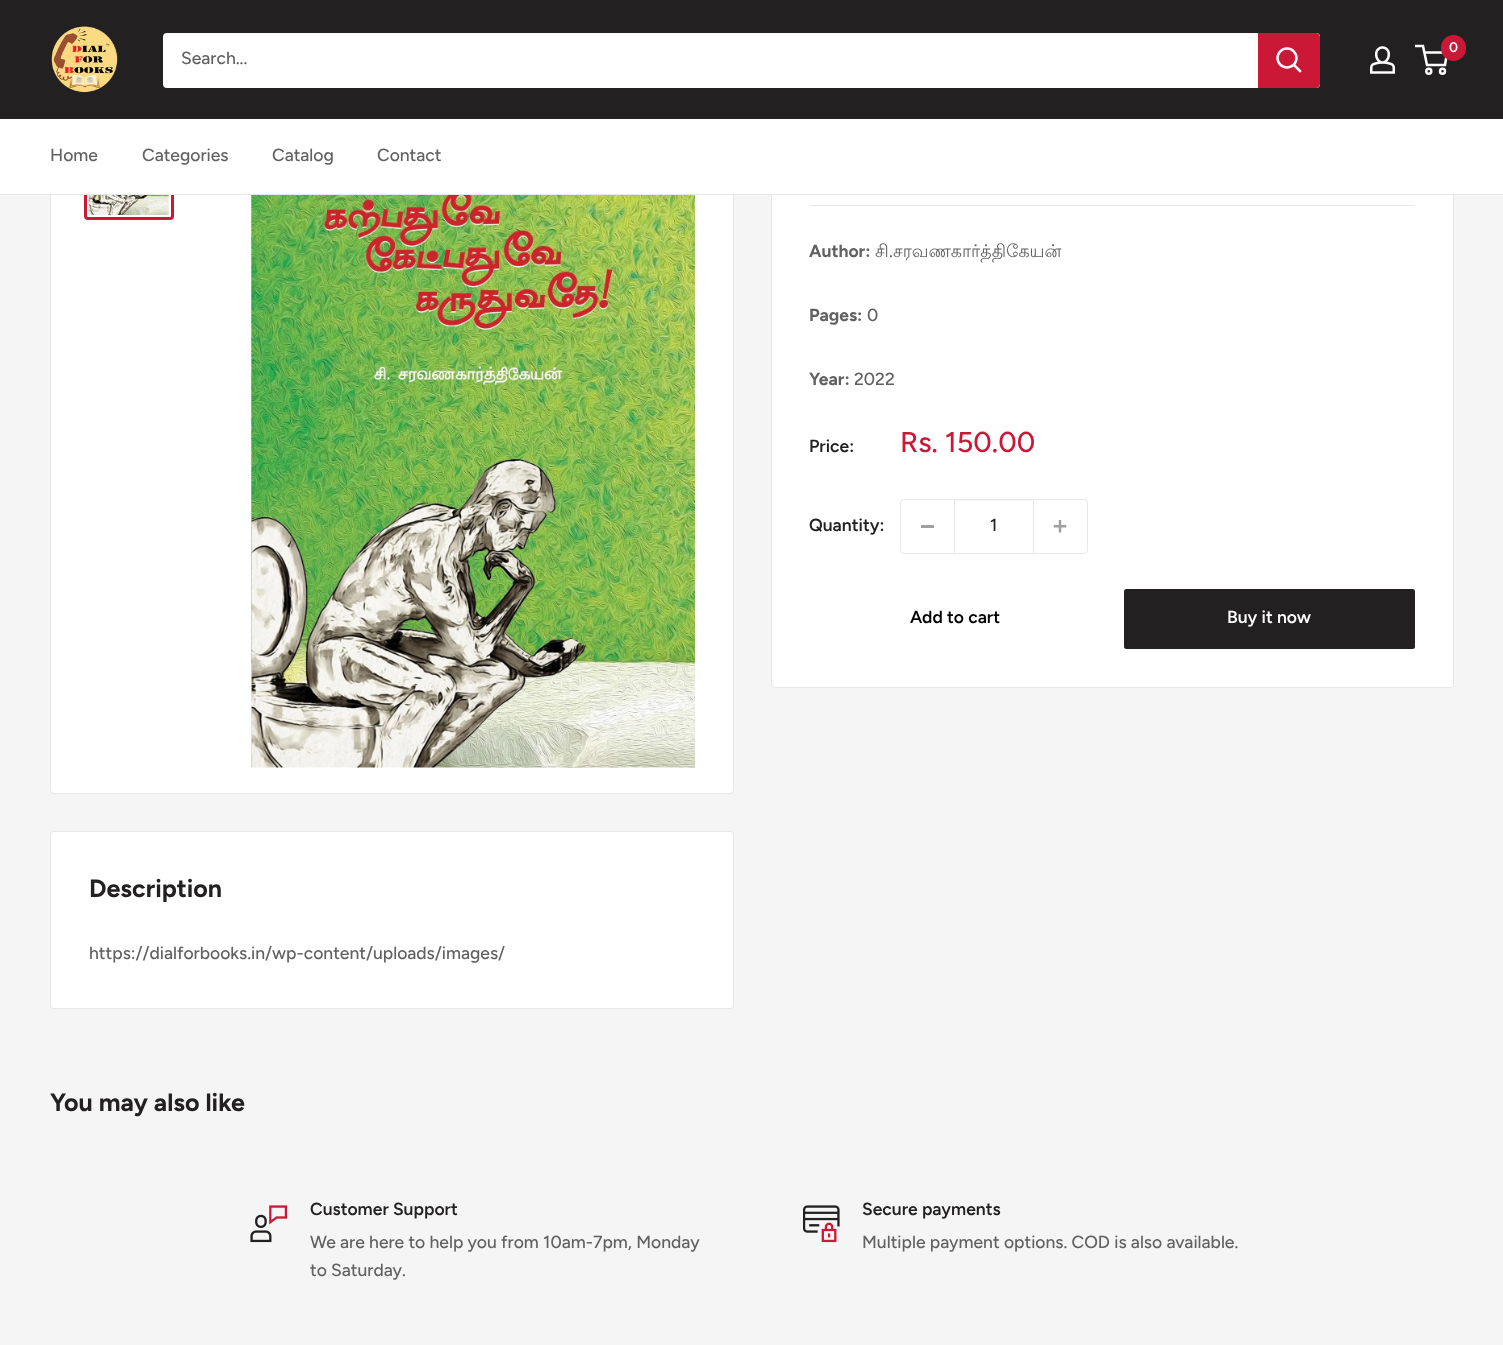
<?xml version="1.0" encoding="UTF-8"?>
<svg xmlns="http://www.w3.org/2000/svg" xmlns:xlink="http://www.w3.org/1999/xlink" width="1503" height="1345">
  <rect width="100%" height="100%" fill="#f5f5f5" />
  <rect x="50.5" y="55.5" width="683" height="738" rx="3.5" fill="#ffffff" stroke="#e8e8e8" />
  <rect x="85.5" y="90.5" width="87" height="128" rx="2.5" fill="none" stroke="#cb1836" stroke-width="3" />
  <rect x="771.5" y="55.5" width="682" height="632" rx="3.5" fill="#ffffff" stroke="#e8e8e8" />
  <rect width="1503" height="119" fill="#222021" />
  <image x="51" y="26" width="67" height="67" xlink:href="image1.png" />
  <image x="1370" y="46" width="25" height="28" xlink:href="image2.png" />
  <circle cx="1428.8" cy="71.2" r="2.5" fill="none" stroke="#ffffff" stroke-width="2.5" />
  <circle cx="1442.5" cy="71.2" r="2.5" fill="none" stroke="#ffffff" stroke-width="2.5" />
  <path d="M 1424 52.5 h 23 l -2 12.5 h -18 l -4 -19 h -8" fill="none" stroke="#ffffff" stroke-width="2.5" />
  <rect x="1441" y="35" width="25" height="26" rx="12.5" fill="#cb1836" />
  <rect x="163" y="33" width="1157" height="55" rx="4" fill="#ffffff" />
  <path d="M 1258 33 h 58 c 2 0 4 2 4 4 v 47 c 0 2 -2 4 -4 4 h -58 z" fill="#cb1836" />
  <path d="M 1300 71 l -6 -6" fill="none" stroke="#ffffff" stroke-width="2.5" stroke-linecap="square" />
  <circle cx="1287" cy="58" r="9.5" fill="none" stroke="#ffffff" stroke-width="2.5" />
  <rect y="119" width="1503" height="75" fill="#ffffff" />
  <rect y="194" width="1503" height="1" fill="#e8e8e8" />
  <image x="88" y="195" width="81" height="20" xlink:href="image3.png" />
  <image x="251" y="195" width="444" height="573" xlink:href="image4.png" />
  <rect x="810" y="205" width="605" height="1" fill="#e8e8e8" />
  <rect x="900.5" y="499.5" width="187" height="54" rx="3.5" fill="none" stroke="#e8e8e8" />
  <rect x="921" y="525" width="13" height="3" fill="#a0a0a0" />
  <rect x="955" y="500" width="78" height="1" fill="#f6f6f6" />
  <rect x="1033" y="500" width="1" height="53" fill="#e8e8e8" />
  <rect x="954" y="500" width="1" height="53" fill="#e8e8e8" />
  <image x="1053" y="520" width="14" height="13" xlink:href="image5.png" />
  <rect x="1124" y="589" width="291" height="60" rx="2.5" fill="#222021" />
  <rect x="50.5" y="831.5" width="683" height="177" rx="3.5" fill="#ffffff" stroke="#e8e8e8" />
  <image x="250" y="1205" width="38" height="38" xlink:href="image6.png" />
  <image x="803" y="1205" width="37" height="38" xlink:href="image7.png" />
  <text x="1449" y="52" style="font-family: Figtree; font-size: 14px; font-weight: 600; fill: #ffffff">0</text>
  <text x="181" y="64" style="font-family: Figtree; font-size: 17.5px; font-weight: 500; fill: #616161">Search...</text>
  <text x="50" y="161" style="font-family: Figtree; font-size: 17.5px; font-weight: 500; fill: #616161">Home</text>
  <text x="142" y="161" style="font-family: Figtree; font-size: 17.5px; font-weight: 500; fill: #616161">Categories</text>
  <text x="272" y="161" style="font-family: Figtree; font-size: 17.5px; font-weight: 500; fill: #616161">Catalog</text>
  <text x="377" y="161" style="font-family: Figtree; font-size: 17.5px; font-weight: 500; fill: #616161">Contact</text>
  <text x="809" y="257" style="font-family: Figtree; font-size: 17.5px; font-weight: bold; fill: #616161">Author:</text>
  <text x="875" y="257" style="font-family: Lohit Tamil; font-size: 17.5px; fill: #616161">சி</text>
  <text x="889" y="257" style="font-family: Figtree; font-size: 17.5px; font-weight: 500; fill: #616161">.</text>
  <text x="893" y="257" style="font-family: Lohit Tamil; font-size: 17.5px; fill: #616161">சரவணகார்த்திகேயன்</text>
  <text x="809" y="321" style="font-family: Figtree; font-size: 17.5px; font-weight: bold; fill: #616161">Pages:</text>
  <text x="867" y="321" style="font-family: Figtree; font-size: 17.5px; font-weight: 500; fill: #616161">0</text>
  <text x="809" y="385" style="font-family: Figtree; font-size: 17.5px; font-weight: bold; fill: #616161">Year:</text>
  <text x="854" y="385" style="font-family: Figtree; font-size: 17.5px; font-weight: 500; fill: #616161">2022</text>
  <text x="809" y="452" style="font-family: Figtree; font-size: 17.5px; font-weight: 600; fill: #222021">Price:</text>
  <text x="900" y="452" style="font-family: Figtree; font-size: 28.75px; font-weight: 500; fill: #cb1836">Rs. 150.00</text>
  <text x="809" y="531" style="font-family: Figtree; font-size: 17.5px; font-weight: 600; fill: #222021">Quantity:</text>
  <text x="990" y="531" style="font-family: Figtree; font-size: 17.5px; font-weight: 500; fill: #222021">1</text>
  <text x="910" y="623" style="font-family: Figtree; font-size: 17.5px; font-weight: 600; fill: #000000">Add to cart</text>
  <text x="1227" y="623" style="font-family: Figtree; font-size: 17.5px; font-weight: 600; fill: #ffffff">Buy it now</text>
  <text x="89" y="897" style="font-family: Figtree; font-size: 25px; font-weight: bold; fill: #222021">Description</text>
  <text x="89" y="959" style="font-family: Figtree; font-size: 17.5px; font-weight: 500; fill: #616161">https://dialforbooks.in/wp-content/uploads/images/</text>
  <text x="50" y="1111" style="font-family: Figtree; font-size: 25px; font-weight: bold; fill: #222021">You may also like</text>
  <text x="310" y="1215" style="font-family: Figtree; font-size: 17.5px; font-weight: 600; fill: #222021">Customer Support</text>
  <text x="310" y="1248" style="font-family: Figtree; font-size: 17.5px; font-weight: 500; fill: #616161">We are here to help you from 10am-7pm, Monday</text>
  <text x="310" y="1276" style="font-family: Figtree; font-size: 17.5px; font-weight: 500; fill: #616161">to Saturday.</text>
  <text x="862" y="1215" style="font-family: Figtree; font-size: 17.5px; font-weight: 600; fill: #222021">Secure payments</text>
  <text x="862" y="1248" style="font-family: Figtree; font-size: 17.5px; font-weight: 500; fill: #616161">Multiple payment options. COD is also available.</text>
</svg>
